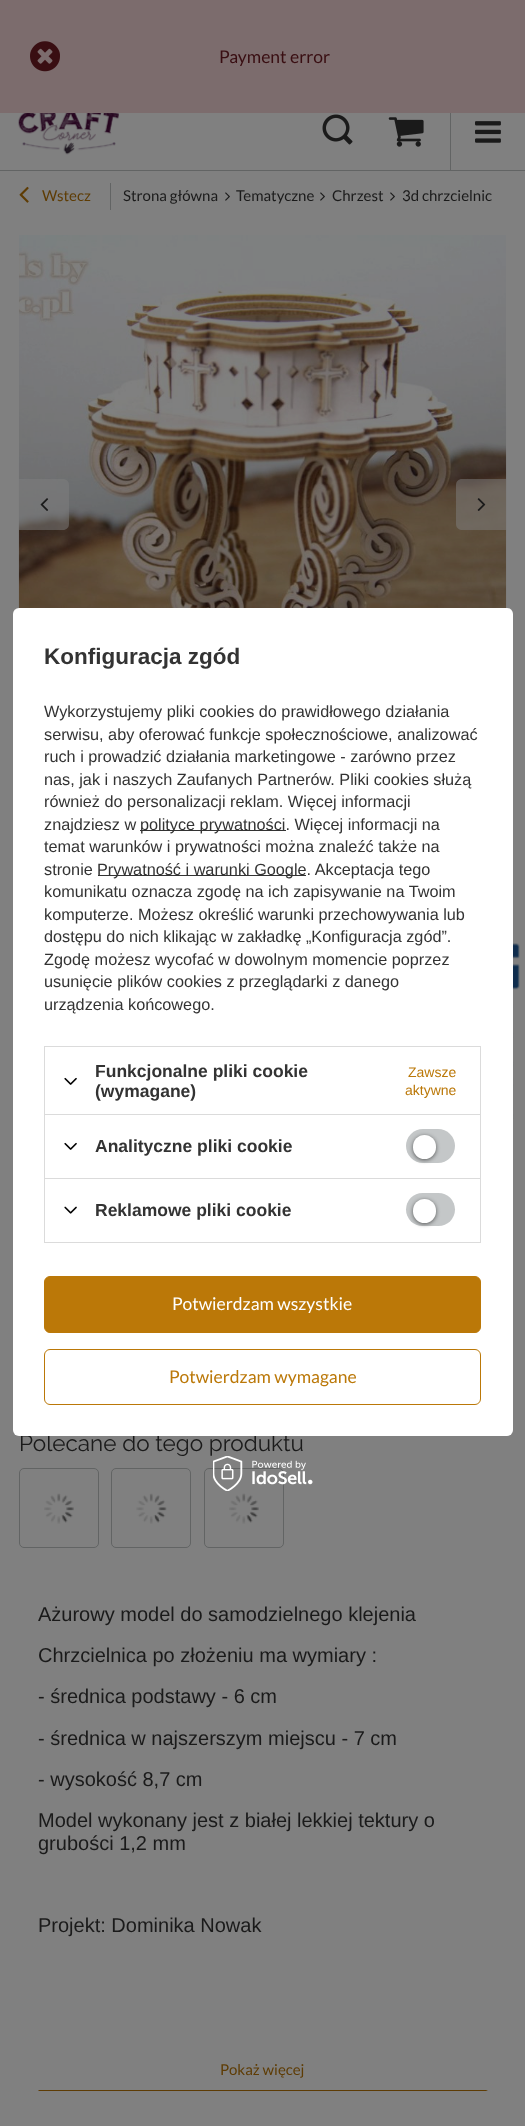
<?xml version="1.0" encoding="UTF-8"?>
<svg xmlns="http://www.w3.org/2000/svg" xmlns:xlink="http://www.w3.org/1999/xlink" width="525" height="2126">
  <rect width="100%" height="100%" fill="#808080" />
  <rect width="525" height="113" fill="#7c6c6d" />
  <image x="30" y="41" width="30" height="31" xlink:href="image1.png" />
  <rect y="170" width="525" height="1" fill="#626464" />
  <image x="18" y="113" width="101" height="42" xlink:href="image2.png" />
  <image x="322" y="114" width="31" height="31" xlink:href="image3.png" />
  <image x="388" y="117" width="36" height="30" xlink:href="image4.png" />
  <rect x="450" y="113" width="1" height="57" fill="#626464" />
  <image x="475" y="121" width="26" height="22" xlink:href="image5.png" />
  <image x="19" y="186" width="10" height="17" xlink:href="image6.png" />
  <rect x="110" y="183" width="1" height="27" fill="#626464" />
  <image x="225" y="192" width="5" height="9" xlink:href="image7.png" />
  <image x="320" y="192" width="5" height="9" xlink:href="image7.png" />
  <image x="390" y="192" width="5" height="9" xlink:href="image7.png" />
  <image x="18" y="235" width="489" height="374" xlink:href="image8.png" />
  <path d="M 19 479 h 44 c 3.5 0 6 2.5 6 6 v 39 c 0 3.5 -2.5 6 -6 6 h -44 z" fill="#808080" fill-opacity="0.5" />
  <image x="40" y="498" width="9" height="13" xlink:href="image9.png" />
  <path d="M 462 479 h 44 v 51 h -44 c -3.5 0 -6 -2.5 -6 -6 v -39 c 0 -3.5 2.5 -6 6 -6 z" fill="#808080" fill-opacity="0.5" />
  <image x="477" y="498" width="9" height="13" xlink:href="image10.png" />
  <rect x="19.5" y="1468.5" width="79" height="79" rx="4.5" fill="none" stroke="#626464" />
  <image x="44" y="1493" width="30" height="31" xlink:href="image11.png" />
  <rect x="111.5" y="1468.5" width="79" height="79" rx="4.5" fill="none" stroke="#626464" />
  <image x="136" y="1493" width="31" height="31" xlink:href="image12.png" />
  <rect x="204.5" y="1468.5" width="79" height="79" rx="4.5" fill="none" stroke="#626464" />
  <image x="229" y="1493" width="30" height="31" xlink:href="image11.png" />
  <path d="M 488 2091 h -450 l 1 -1 h 447 z" fill="#5e3c04" />
  <image x="213" y="1456" width="100" height="35" xlink:href="image15.png" />
  <image x="513" y="943" width="7" height="176" xlink:href="image16.png" />
  <text x="219" y="63" style="font-family: Lato; font-size: 17.5px; fill: #390e12">Payment error</text>
  <text x="42" y="201" style="font-family: Lato; font-size: 15px; fill: #5e3c04">Wstecz</text>
  <text x="123" y="201" style="font-family: Lato; font-size: 15px; fill: #1a1a1a">Strona główna</text>
  <text x="236" y="201" style="font-family: Lato; font-size: 15px; fill: #1a1a1a">Tematyczne</text>
  <text x="332" y="201" style="font-family: Lato; font-size: 15px; fill: #1a1a1a">Chrzest</text>
  <text x="402" y="201" style="font-family: Lato; font-size: 15px; fill: #1a1a1a">3d chrzcielnic</text>
  <text x="19" y="1451" style="font-family: Raleway; font-size: 22.5px; fill: #1a1a1a">Polecane do tego produktu</text>
  <text x="38" y="1621" style="font-family: Liberation Sans; font-size: 20px; fill: #1a1a1a">Ażurowy model do samodzielnego klejenia</text>
  <text x="38" y="1662" style="font-family: Liberation Sans; font-size: 20px; fill: #1a1a1a">Chrzcielnica po złożeniu ma wymiary :</text>
  <text x="38" y="1703" style="font-family: Liberation Sans; font-size: 20px; fill: #1a1a1a">- średnica podstawy - 6 cm</text>
  <text x="38" y="1745" style="font-family: Liberation Sans; font-size: 20px; fill: #1a1a1a">- średnica w najszerszym miejscu - 7 cm</text>
  <text x="38" y="1786" style="font-family: Liberation Sans; font-size: 20px; fill: #1a1a1a">- wysokość 8,7 cm</text>
  <text x="38" y="1827" style="font-family: Liberation Sans; font-size: 20px; fill: #1a1a1a">Model wykonany jest z białej lekkiej tektury o</text>
  <text x="38" y="1850" style="font-family: Liberation Sans; font-size: 20px; fill: #1a1a1a">grubości 1,2 mm</text>
  <text x="38" y="1932" style="font-family: Liberation Sans; font-size: 20px; fill: #1a1a1a">Projekt: Dominika Nowak</text>
  <text x="220" y="2075" style="font-family: Lato; font-size: 15px; fill: #5e3c04">Pokaż więcej</text>
  <rect x="13" y="608" width="500" height="828" rx="6" fill="#ffffff" />
  <text x="44" y="664" style="font-family: Liberation Sans; font-size: 22.5px; font-weight: bold; fill: #333333">Konfiguracja zgód</text>
  <text x="44" y="717" style="font-family: Liberation Sans; font-size: 16.25px; fill: #333333">Wykorzystujemy pliki cookies do prawidłowego działania</text>
  <text x="44" y="740" style="font-family: Liberation Sans; font-size: 16.25px; fill: #333333">serwisu, aby oferować funkcje społecznościowe, analizować</text>
  <text x="44" y="762" style="font-family: Liberation Sans; font-size: 16.25px; fill: #333333">ruch i prowadzić działania marketingowe - zarówno przez</text>
  <text x="44" y="785" style="font-family: Liberation Sans; font-size: 16.25px; fill: #333333">nas, jak i naszych Zaufanych Partnerów. Pliki cookies służą</text>
  <text x="44" y="807" style="font-family: Liberation Sans; font-size: 16.25px; fill: #333333">również do personalizacji reklam. Więcej informacji</text>
  <text x="44" y="830" style="font-family: Liberation Sans; font-size: 16.25px; fill: #333333">znajdziesz w</text>
  <rect x="140" y="830" width="146" height="1" fill="#333333" />
  <text x="140" y="830" style="font-family: Liberation Sans; font-size: 16.25px; fill: #333333">polityce prywatności. Więcej informacji na</text>
  <text x="44" y="852" style="font-family: Liberation Sans; font-size: 16.25px; fill: #333333">temat warunków i prywatności można znaleźć także na</text>
  <text x="44" y="875" style="font-family: Liberation Sans; font-size: 16.25px; fill: #333333">stronie</text>
  <rect x="98" y="875" width="208" height="1" fill="#333333" />
  <text x="97" y="875" style="font-family: Liberation Sans; font-size: 16.25px; fill: #333333">Prywatność i warunki Google. Akceptacja tego</text>
  <text x="44" y="897" style="font-family: Liberation Sans; font-size: 16.25px; fill: #333333">komunikatu oznacza zgodę na ich zapisywanie na Twoim</text>
  <text x="44" y="920" style="font-family: Liberation Sans; font-size: 16.25px; fill: #333333">komputerze. Możesz określić warunki przechowywania lub</text>
  <text x="44" y="942" style="font-family: Liberation Sans; font-size: 16.25px; fill: #333333">dostępu do nich klikając w zakładkę „Konfiguracja zgód”.</text>
  <text x="44" y="965" style="font-family: Liberation Sans; font-size: 16.25px; fill: #333333">Zgodę możesz wycofać w dowolnym momencie poprzez</text>
  <text x="44" y="987" style="font-family: Liberation Sans; font-size: 16.25px; fill: #333333">usunięcie plików cookies z przeglądarki z danego</text>
  <text x="44" y="1010" style="font-family: Liberation Sans; font-size: 16.25px; fill: #333333">urządzenia końcowego.</text>
  <rect x="44" y="1046" width="437" height="1" fill="#dbdbdb" />
  <rect x="480" y="1046" width="1" height="68" fill="#dbdbdb" />
  <rect x="44" y="1046" width="1" height="68" fill="#dbdbdb" />
  <image x="64" y="1077" width="13" height="8" xlink:href="image13.png" />
  <text x="95" y="1077" style="font-family: Liberation Sans; font-size: 17.5px; font-weight: bold; fill: #333333">Funkcjonalne pliki cookie</text>
  <text x="95" y="1097" style="font-family: Liberation Sans; font-size: 17.5px; font-weight: bold; fill: #333333">(wymagane)</text>
  <text x="408" y="1077" style="font-family: Liberation Sans; font-size: 14px; fill: #bb7808">Zawsze</text>
  <text x="405" y="1095" style="font-family: Liberation Sans; font-size: 14px; fill: #bb7808">aktywne</text>
  <rect x="44" y="1114" width="437" height="1" fill="#dbdbdb" />
  <rect x="480" y="1114" width="1" height="64" fill="#dbdbdb" />
  <rect x="44" y="1114" width="1" height="64" fill="#dbdbdb" />
  <image x="64" y="1142" width="13" height="8" xlink:href="image13.png" />
  <text x="95" y="1152" style="font-family: Liberation Sans; font-size: 17.5px; font-weight: bold; fill: #333333">Analityczne pliki cookie</text>
  <rect x="406" y="1129" width="49" height="34" rx="17" fill="#c4c7c8" />
  <rect x="413" y="1136" width="23" height="24" rx="11.5" fill="#000000" fill-opacity="0.56" filter="blur(2px)" />
  <rect x="413" y="1135" width="23" height="24" rx="11.5" fill="#ffffff" />
  <rect x="44.5" y="1178.5" width="436" height="64" fill="none" stroke="#dbdbdb" />
  <image x="64" y="1206" width="13" height="8" xlink:href="image14.png" />
  <text x="95" y="1216" style="font-family: Liberation Sans; font-size: 17.5px; font-weight: bold; fill: #333333">Reklamowe pliki cookie</text>
  <rect x="406" y="1193" width="49" height="33" rx="16.5" fill="#c4c7c8" />
  <rect x="413" y="1200" width="23" height="24" rx="11.5" fill="#000000" fill-opacity="0.56" filter="blur(2px)" />
  <rect x="413" y="1199" width="23" height="24" rx="11.5" fill="#ffffff" />
  <rect x="44.5" y="1276.5" width="436" height="56" rx="5.5" fill="#bb7808" stroke="#bb7808" />
  <text x="172" y="1310" style="font-family: Lato; font-size: 17.5px; fill: #ffffff">Potwierdzam wszystkie</text>
  <rect x="44.5" y="1349.5" width="436" height="55" rx="5.5" fill="none" stroke="#bb7808" />
  <text x="169" y="1383" style="font-family: Lato; font-size: 17.5px; fill: #bb7808">Potwierdzam wymagane</text>
</svg>
